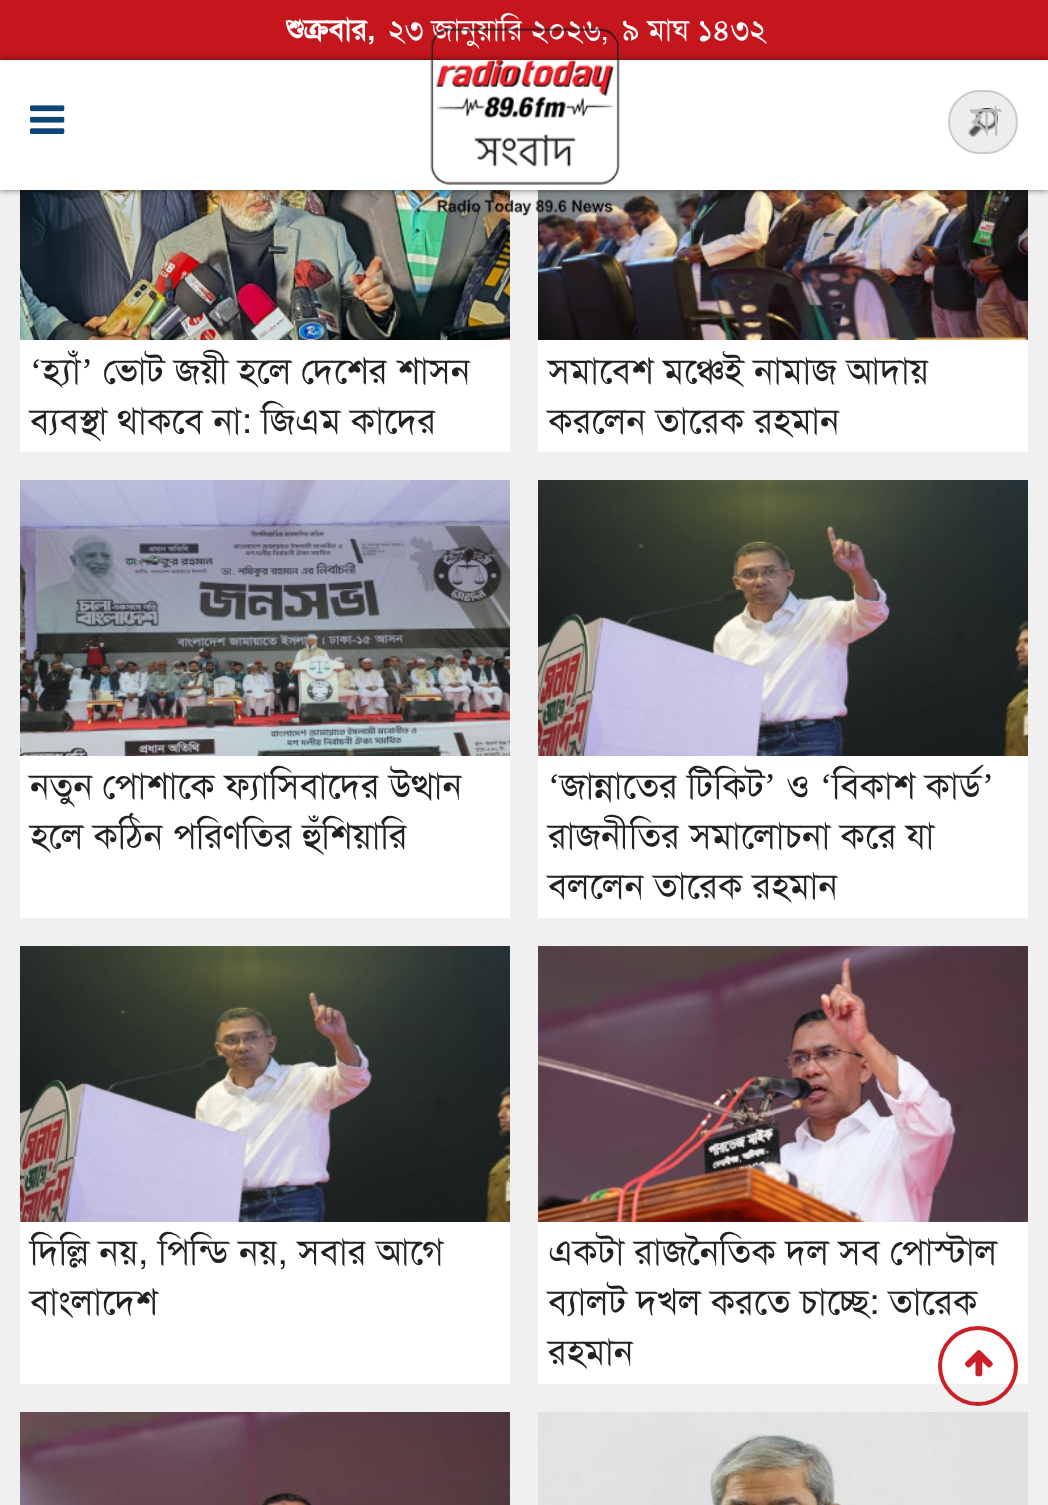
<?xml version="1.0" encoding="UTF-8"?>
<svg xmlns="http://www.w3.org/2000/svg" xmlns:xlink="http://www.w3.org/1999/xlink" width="1048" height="1505">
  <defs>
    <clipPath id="clip1"><path d="M 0 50 h 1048 v 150 h -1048 z m 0 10 h 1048 v 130 h -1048 z" clip-rule="evenodd" /></clipPath>
    <clipPath id="clip2"><rect x="970" y="94" width="32" height="54" /></clipPath>
  </defs>
  <rect width="100%" height="100%" fill="#f0f0f0" />
  <rect y="60" width="1048" height="130" fill="#ffffff" />
  <rect width="1048" height="60" fill="#c4161c" />
  <image x="20" y="190" width="490" height="150" xlink:href="image4.png" />
  <image x="538" y="190" width="490" height="150" xlink:href="image5.png" />
  <g clip-path="url(#clip1)">
    <rect y="60" width="1048" height="130" fill="#000000" fill-opacity="0.57" filter="blur(3px)" />
  </g>
  <image x="30" y="105" width="35" height="29" xlink:href="image1.png" />
  <rect x="948" y="90" width="70" height="64" rx="32" fill="#ededed" />
  <image x="968" y="108" width="30" height="30" xlink:href="image3.png" />
  <rect x="949" y="91" width="68" height="62" rx="31" fill="none" stroke="#cccccc" stroke-width="2" />
  <rect x="20" y="340" width="490" height="112" fill="#ffffff" />
  <rect x="538" y="340" width="490" height="112" fill="#ffffff" />
  <rect x="20" y="756" width="490" height="162" fill="#ffffff" />
  <image x="20" y="480" width="490" height="276" xlink:href="image6.png" />
  <rect x="538" y="756" width="490" height="162" fill="#ffffff" />
  <image x="538" y="480" width="490" height="276" xlink:href="image7.png" />
  <rect x="20" y="1222" width="490" height="162" fill="#ffffff" />
  <image x="20" y="946" width="490" height="276" xlink:href="image8.png" />
  <rect x="538" y="1222" width="490" height="162" fill="#ffffff" />
  <image x="538" y="946" width="490" height="276" xlink:href="image9.png" />
  <image x="20" y="1412" width="490" height="93" xlink:href="image10.png" />
  <image x="538" y="1412" width="490" height="93" xlink:href="image11.png" />
  <circle cx="978" cy="1366" r="38" fill="none" stroke="#c92127" stroke-width="4" />
  <image x="965" y="1350" width="28" height="27" xlink:href="image12.png" />
  <text x="286" y="40" style="font-family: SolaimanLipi; font-size: 30px; font-weight: bold; fill: #ffffff">শুক্রবার,</text>
  <text x="388" y="40" style="font-family: SolaimanLipi; font-size: 30px; fill: #ffffff">২৩ জানুয়ারি ২০২৬,</text>
  <text x="622" y="40" style="font-family: SolaimanLipi; font-size: 30px; fill: #ffffff">৯ মাঘ ১৪৩২</text>
  <image x="429" y="27" width="191" height="190" xlink:href="image2.png" />
  <g clip-path="url(#clip2)">
    <text x="970" y="134" style="font-family: SolaimanLipi; font-size: 40px; fill: #bbbbbb">যা</text>
  </g>
  <text x="103" y="383" style="font-family: SolaimanLipi; font-size: 36px; fill: #222222">ভোট জয়ী হলে দেশের শাসন</text>
  <text x="30" y="383" style="font-family: Liberation Serif; font-size: 36px; fill: #222222">‘</text>
  <text x="42" y="383" style="font-family: SolaimanLipi; font-size: 36px; fill: #222222">হ্যাঁ</text>
  <text x="81" y="383" style="font-family: Liberation Serif; font-size: 36px; fill: #222222">’</text>
  <text x="30" y="433" style="font-family: SolaimanLipi; font-size: 36px; fill: #222222">ব্যবস্থা থাকবে না: জিএম কাদের</text>
  <text x="548" y="383" style="font-family: SolaimanLipi; font-size: 36px; fill: #222222">সমাবেশ মঞ্চেই নামাজ আদায়</text>
  <text x="548" y="433" style="font-family: SolaimanLipi; font-size: 36px; fill: #222222">করলেন তারেক রহমান</text>
  <text x="30" y="798" style="font-family: SolaimanLipi; font-size: 36px; fill: #222222">নতুন পোশাকে ফ্যাসিবাদের উত্থান</text>
  <text x="30" y="848" style="font-family: SolaimanLipi; font-size: 36px; fill: #222222">হলে কঠিন পরিণতির হুঁশিয়ারি</text>
  <text x="548" y="798" style="font-family: Liberation Serif; font-size: 36px; fill: #222222">‘</text>
  <text x="560" y="798" style="font-family: SolaimanLipi; font-size: 36px; fill: #222222">জান্নাতের টিকিট</text>
  <text x="764" y="798" style="font-family: Liberation Serif; font-size: 36px; fill: #222222">’</text>
  <text x="786" y="798" style="font-family: SolaimanLipi; font-size: 36px; fill: #222222">ও</text>
  <text x="820" y="798" style="font-family: Liberation Serif; font-size: 36px; fill: #222222">‘</text>
  <text x="832" y="798" style="font-family: SolaimanLipi; font-size: 36px; fill: #222222">বিকাশ কার্ড</text>
  <text x="982" y="798" style="font-family: Liberation Serif; font-size: 36px; fill: #222222">’</text>
  <text x="548" y="848" style="font-family: SolaimanLipi; font-size: 36px; fill: #222222">রাজনীতির সমালোচনা করে যা</text>
  <text x="548" y="898" style="font-family: SolaimanLipi; font-size: 36px; fill: #222222">বললেন তারেক রহমান</text>
  <text x="30" y="1264" style="font-family: SolaimanLipi; font-size: 36px; fill: #222222">দিল্লি নয়, পিন্ডি নয়, সবার আগে</text>
  <text x="30" y="1314" style="font-family: SolaimanLipi; font-size: 36px; fill: #222222">বাংলাদেশ</text>
  <text x="548" y="1264" style="font-family: SolaimanLipi; font-size: 36px; fill: #222222">একটা রাজনৈতিক দল সব পোস্টাল</text>
  <text x="548" y="1314" style="font-family: SolaimanLipi; font-size: 36px; fill: #222222">ব্যালট দখল করতে চাচ্ছে: তারেক</text>
  <text x="548" y="1364" style="font-family: SolaimanLipi; font-size: 36px; fill: #222222">রহমান</text>
</svg>
